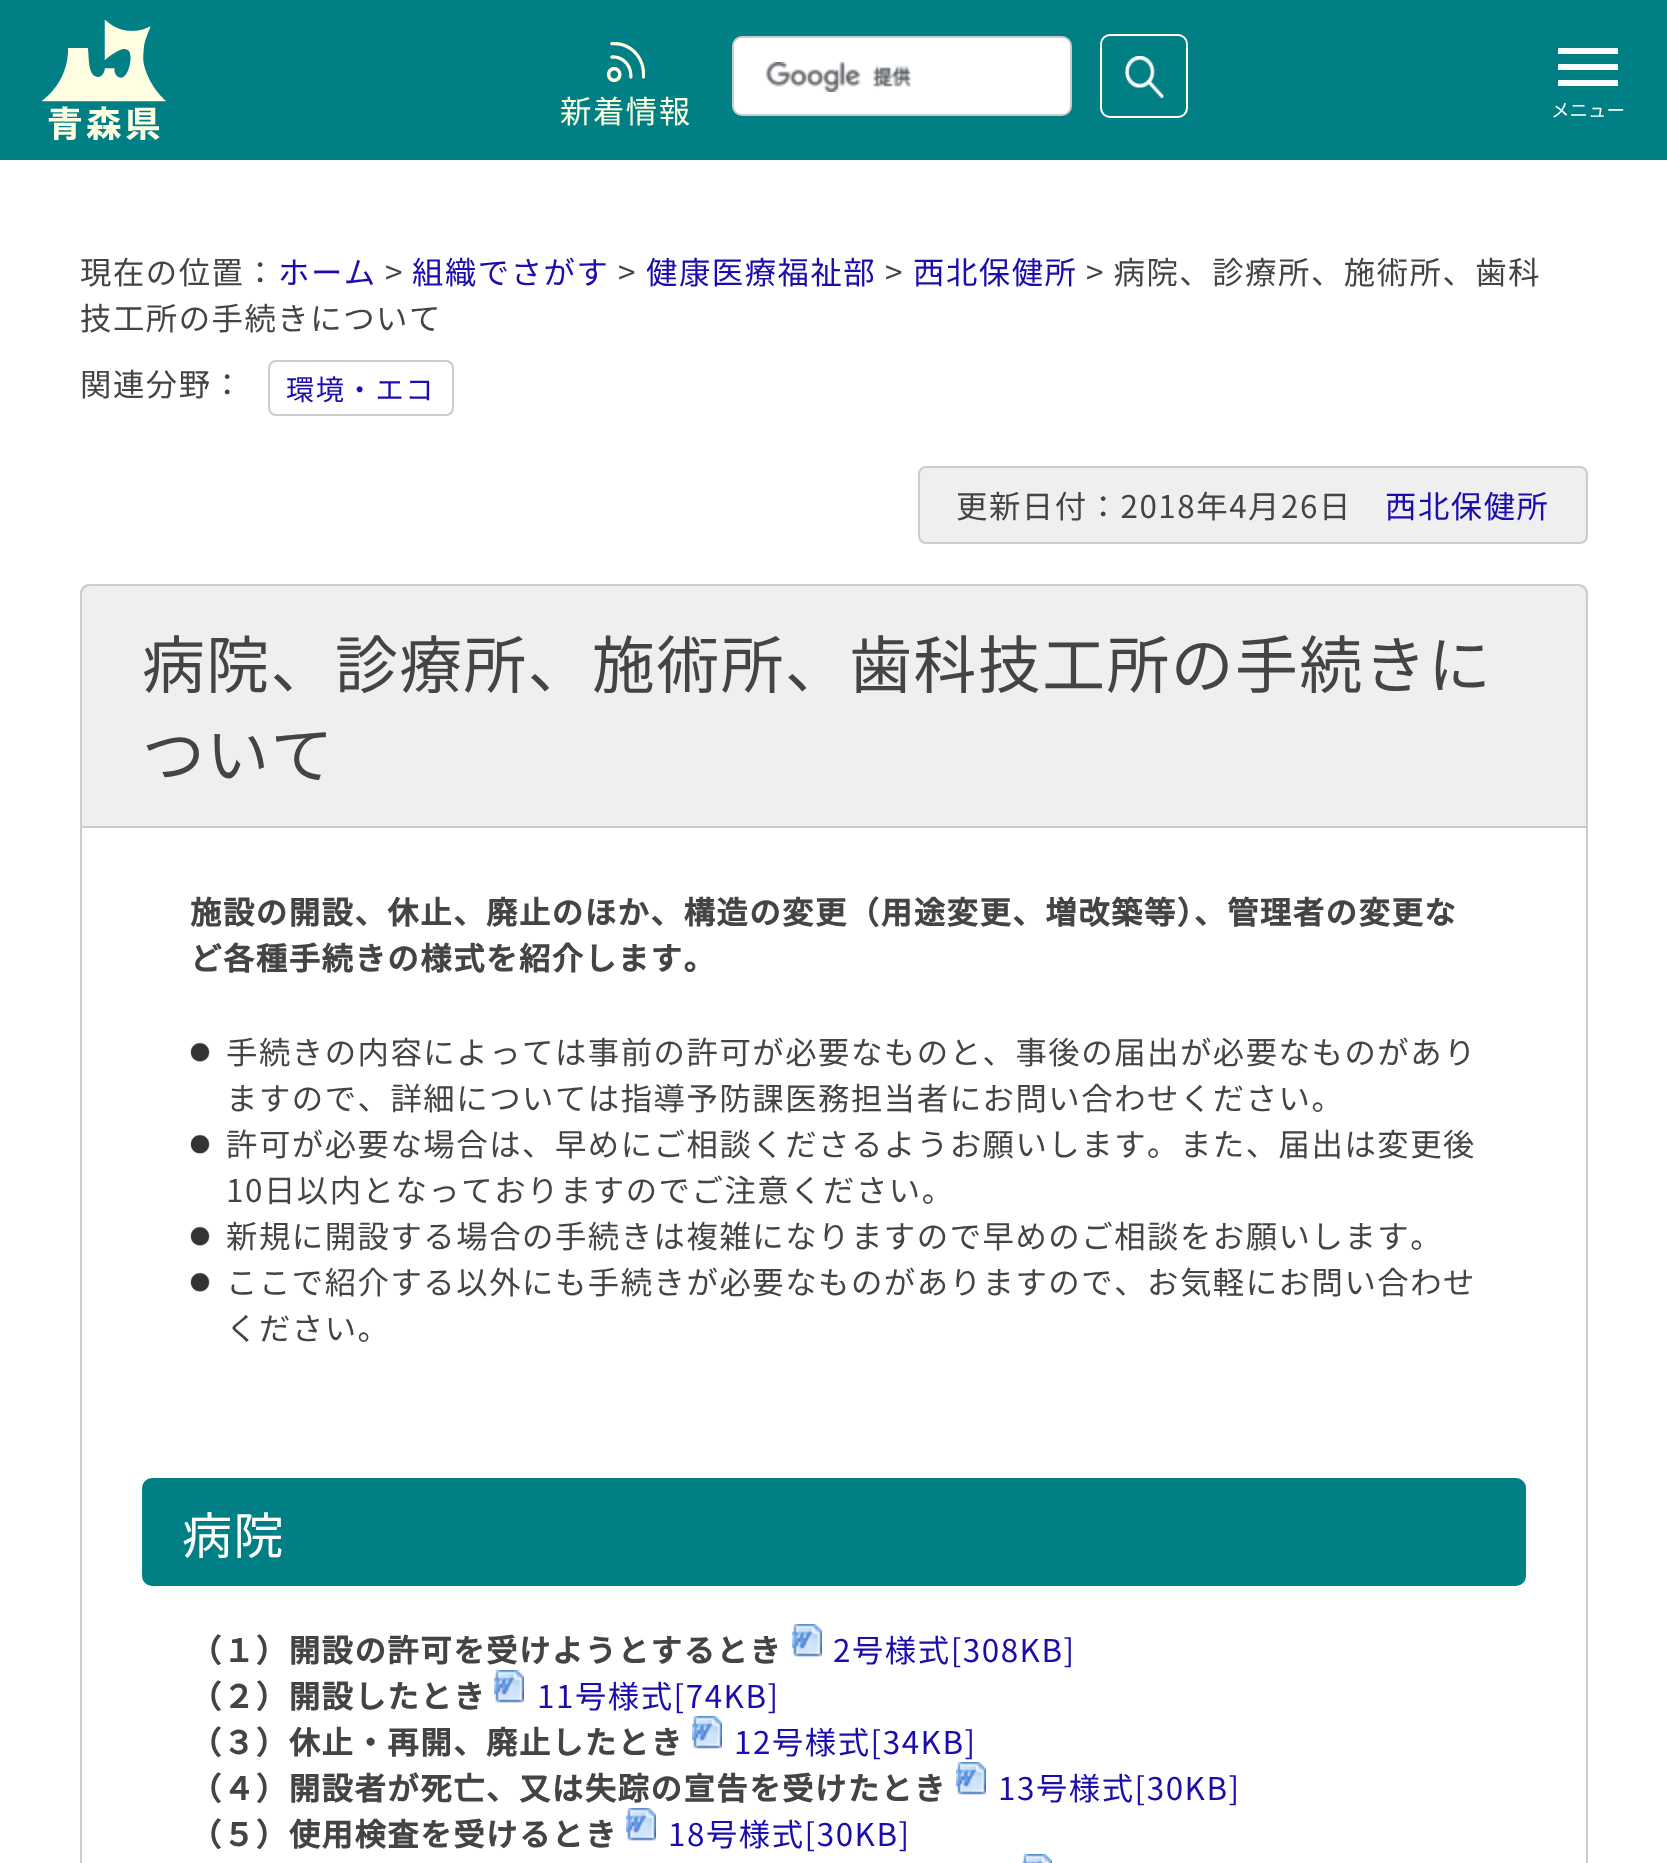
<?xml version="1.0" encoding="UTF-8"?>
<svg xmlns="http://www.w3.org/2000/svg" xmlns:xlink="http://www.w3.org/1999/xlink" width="1667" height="1863">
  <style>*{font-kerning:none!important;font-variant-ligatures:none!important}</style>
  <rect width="100%" height="100%" fill="#ffffff" />
  <rect width="1667" height="160" fill="#008084" />
  <image x="41" y="20" width="125" height="120" xlink:href="image1.png" />
  <image x="607" y="42" width="38" height="40" xlink:href="image2.png" />
  <rect x="733" y="37" width="338" height="78" rx="9" fill="#ffffff" stroke="#cccccc" stroke-width="2" />
  <image x="766" y="62" width="146" height="30" xlink:href="image3.png" />
  <image x="1125" y="56" width="39" height="42" xlink:href="image4.png" />
  <rect x="1101" y="35" width="86" height="82" rx="9" fill="none" stroke="#ffffff" stroke-width="2" />
  <rect x="1558" y="48" width="60" height="6" fill="#ffffff" />
  <rect x="1558" y="64" width="60" height="6" fill="#ffffff" />
  <rect x="1558" y="80" width="60" height="6" fill="#ffffff" />
  <rect x="269" y="361" width="184" height="54" rx="7" fill="none" stroke="#cccccc" stroke-width="2" />
  <rect x="919" y="467" width="668" height="76" rx="7" fill="#efefef" stroke="#cccccc" stroke-width="2" />
  <path d="M 90 584 h 1488 c 5.5 0 10 4.5 10 10 v 232 h -1508 v -232 c 0 -5.5 4.5 -10 10 -10 z" fill="#efefef" />
  <path d="M 90 584 h 1488 c 6 0 10 4 10 10 v 232 h -1508 v -232 c 0 -6 4 -10 10 -10 z m 0 2 h 1488 c 4 0 8 4 8 8 v 232 h -1504 v -232 c 0 -4 4 -8 8 -8 z" fill="#cccccc" fill-rule="evenodd" />
  <rect x="81" y="827" width="1506" height="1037" fill="none" stroke="#cccccc" stroke-width="2" />
  <image x="190" y="1042" width="20" height="20" xlink:href="image5.png" />
  <image x="190" y="1134" width="20" height="20" xlink:href="image5.png" />
  <image x="190" y="1226" width="20" height="20" xlink:href="image5.png" />
  <image x="190" y="1272" width="20" height="20" xlink:href="image6.png" />
  <rect x="142" y="1478" width="1384" height="108" rx="10" fill="#008084" />
  <image x="792" y="1624" width="30" height="33" xlink:href="image7.png" />
  <image x="494" y="1670" width="30" height="33" xlink:href="image7.png" />
  <image x="692" y="1716" width="30" height="33" xlink:href="image7.png" />
  <image x="956" y="1762" width="30" height="33" xlink:href="image7.png" />
  <image x="626" y="1808" width="30" height="33" xlink:href="image7.png" />
  <image x="1022" y="1854" width="30" height="9" xlink:href="image8.png" />
  <text x="560" y="123" style="font-family: Noto Sans JP; font-size: 31.35px; letter-spacing: 1.55px; fill: #fffee0">新着情報</text>
  <text x="1551" y="117" style="font-family: Noto Sans JP; font-size: 18.5px; fill: #ffffff">メニュー</text>
  <text x="80" y="284" style="font-family: Noto Sans JP; font-size: 31.35px; letter-spacing: 1.55px; fill: #444444">現在の位置：</text>
  <text x="278" y="284" style="font-family: Noto Sans JP; font-size: 31.35px; letter-spacing: 1.55px; fill: #1a0dab">ホーム</text>
  <text x="385" y="284" style="font-family: Noto Sans JP; font-size: 31.35px; letter-spacing: 1.55px; fill: #444444">&gt;</text>
  <text x="412" y="284" style="font-family: Noto Sans JP; font-size: 31.35px; letter-spacing: 1.55px; fill: #1a0dab">組織でさがす</text>
  <text x="618" y="284" style="font-family: Noto Sans JP; font-size: 31.35px; letter-spacing: 1.55px; fill: #444444">&gt;</text>
  <text x="646" y="284" style="font-family: Noto Sans JP; font-size: 31.35px; letter-spacing: 1.55px; fill: #1a0dab">健康医療福祉部</text>
  <text x="885" y="284" style="font-family: Noto Sans JP; font-size: 31.35px; letter-spacing: 1.55px; fill: #444444">&gt;</text>
  <text x="913" y="284" style="font-family: Noto Sans JP; font-size: 31.35px; letter-spacing: 1.55px; fill: #1a0dab">西北保健所</text>
  <text x="1086" y="284" style="font-family: Noto Sans JP; font-size: 31.35px; letter-spacing: 1.55px; fill: #444444">&gt; 病院、診療所、施術所、歯科</text>
  <text x="80" y="330" style="font-family: Noto Sans JP; font-size: 31.35px; letter-spacing: 1.55px; fill: #444444">技工所の手続きについて</text>
  <text x="80" y="396" style="font-family: Noto Sans JP; font-size: 31.35px; letter-spacing: 1.55px; fill: #444444">関連分野：</text>
  <text x="286" y="400" style="font-family: Noto Sans JP; font-size: 28.25px; letter-spacing: 1.55px; fill: #1a0dab">環境・エコ</text>
  <text x="956" y="518" style="font-family: Noto Sans JP; font-size: 31.35px; letter-spacing: 1.55px; fill: #444444">更新日付：2018年4月26日</text>
  <text x="1385" y="518" style="font-family: Noto Sans JP; font-size: 31.35px; letter-spacing: 1.55px; fill: #1a0dab">西北保健所</text>
  <text x="142" y="688" style="font-family: Noto Sans JP; font-size: 62.75px; letter-spacing: 1.55px; fill: #444444">病院、診療所、施術所、歯科技工所の手続きに</text>
  <text x="142" y="778" style="font-family: Noto Sans JP; font-size: 62.75px; letter-spacing: 1.55px; fill: #444444">ついて</text>
  <text x="190" y="924" style="font-family: Noto Sans JP; font-size: 31.35px; font-weight: bold; letter-spacing: 1.55px; fill: #444444">施設の開設、休止、廃止のほか、構造の変更（用途変更、増改築等）、管理者の変更な</text>
  <text x="190" y="970" style="font-family: Noto Sans JP; font-size: 31.35px; font-weight: bold; letter-spacing: 1.55px; fill: #444444">ど各種手続きの様式を紹介します。</text>
  <text x="226" y="1064" style="font-family: Noto Sans JP; font-size: 31.35px; letter-spacing: 1.55px; fill: #444444">手続きの内容によっては事前の許可が必要なものと、事後の届出が必要なものがあ</text>
  <text x="1444" y="1064" style="font-family: Noto Sans JP; font-size: 31.35px; letter-spacing: 1.55px; fill: #444444">り</text>
  <text x="226" y="1110" style="font-family: Noto Sans JP; font-size: 31.35px; letter-spacing: 1.55px; fill: #444444">ますので、詳細については指導予防課医務担当者にお問い合わせください。</text>
  <text x="226" y="1156" style="font-family: Noto Sans JP; font-size: 31.35px; letter-spacing: 1.55px; fill: #444444">許可が必要な場合は、早めにご相談くださるようお願いします。また、届出は変更後</text>
  <text x="226" y="1202" style="font-family: Noto Sans JP; font-size: 31.35px; letter-spacing: 1.55px; fill: #444444">10日以内となっておりますのでご注意ください。</text>
  <text x="226" y="1248" style="font-family: Noto Sans JP; font-size: 31.35px; letter-spacing: 1.55px; fill: #444444">新規に開設する場合の手続きは複雑になりますので早めのご相談をお願いします。</text>
  <text x="226" y="1294" style="font-family: Noto Sans JP; font-size: 31.35px; letter-spacing: 1.55px; fill: #444444">ここで紹介する以外にも手続きが必要なものがありますので、お気軽にお問い合わせ</text>
  <text x="226" y="1340" style="font-family: Noto Sans JP; font-size: 31.35px; letter-spacing: 1.55px; fill: #444444">ください。</text>
  <text x="182" y="1554" style="font-family: Noto Sans JP; font-size: 50px; letter-spacing: 1.55px; fill: #ffffff">病院</text>
  <text x="190" y="1662" style="font-family: Noto Sans JP; font-size: 31.35px; font-weight: bold; letter-spacing: 1.55px; fill: #444444">（１）開設の許可を受けようとするとき</text>
  <text x="833" y="1662" style="font-family: Noto Sans JP; font-size: 31.35px; letter-spacing: 1.55px; fill: #1a0dab">2号様式[308KB]</text>
  <text x="190" y="1708" style="font-family: Noto Sans JP; font-size: 31.35px; font-weight: bold; letter-spacing: 1.55px; fill: #444444">（２）開設したとき</text>
  <text x="537" y="1708" style="font-family: Noto Sans JP; font-size: 31.35px; letter-spacing: 1.55px; fill: #1a0dab">11号様式[74KB]</text>
  <text x="190" y="1754" style="font-family: Noto Sans JP; font-size: 31.35px; font-weight: bold; letter-spacing: 1.55px; fill: #444444">（３）休止・再開、廃止したとき</text>
  <text x="734" y="1754" style="font-family: Noto Sans JP; font-size: 31.35px; letter-spacing: 1.55px; fill: #1a0dab">12号様式[34KB]</text>
  <text x="190" y="1800" style="font-family: Noto Sans JP; font-size: 31.35px; font-weight: bold; letter-spacing: 1.55px; fill: #444444">（４）開設者が死亡、又は失踪の宣告を受けたとき</text>
  <text x="998" y="1800" style="font-family: Noto Sans JP; font-size: 31.35px; letter-spacing: 1.55px; fill: #1a0dab">13号様式[30KB]</text>
  <text x="190" y="1846" style="font-family: Noto Sans JP; font-size: 31.35px; font-weight: bold; letter-spacing: 1.55px; fill: #444444">（５）使用検査を受けるとき</text>
  <text x="668" y="1846" style="font-family: Noto Sans JP; font-size: 31.35px; letter-spacing: 1.55px; fill: #1a0dab">18号様式[30KB]</text>
</svg>
